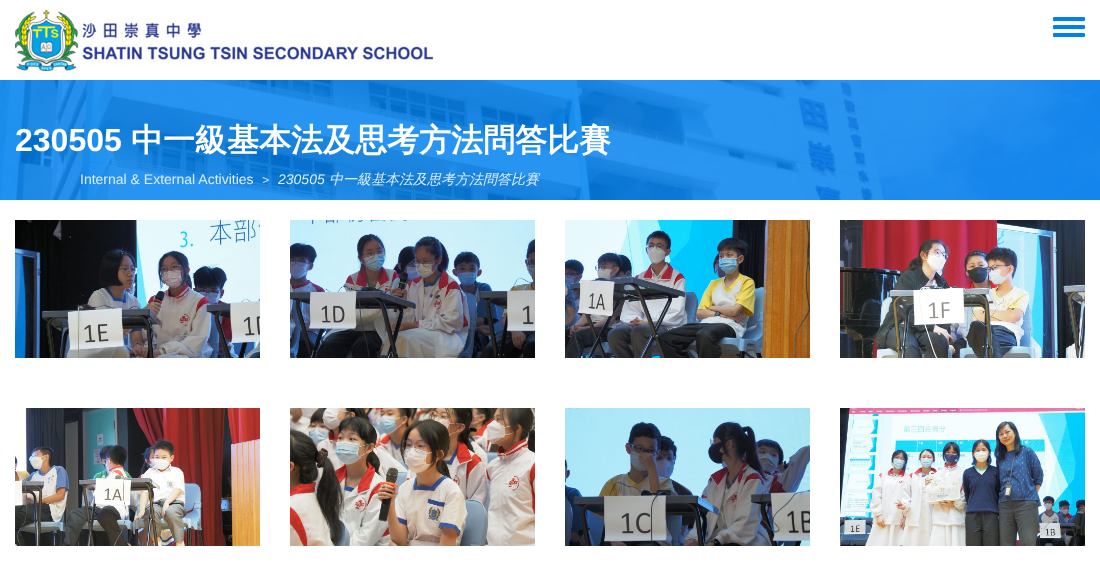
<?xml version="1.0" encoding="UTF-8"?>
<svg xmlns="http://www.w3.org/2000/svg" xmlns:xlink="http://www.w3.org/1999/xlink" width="1100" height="563">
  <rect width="100%" height="100%" fill="#ffffff" />
  <image x="15" y="10" width="424" height="61" xlink:href="image1.png" />
  <rect x="1053" y="25" width="32" height="4" rx="1" fill="#0180ef" />
  <rect x="1053" y="17" width="32" height="4" rx="1" fill="#0180ef" />
  <rect x="1053" y="33" width="32" height="4" rx="1" fill="#0180ef" />
  <rect y="80" width="1100" height="120" fill="#0181f0" />
  <image x="0" y="80" width="1100" height="120" xlink:href="image2.png" />
  <image x="15" y="220" width="245" height="138" xlink:href="image3.png" />
  <image x="290" y="220" width="245" height="138" xlink:href="image4.png" />
  <image x="565" y="220" width="245" height="138" xlink:href="image5.png" />
  <image x="840" y="220" width="245" height="138" xlink:href="image6.png" />
  <image x="15" y="408" width="245" height="138" xlink:href="image7.png" />
  <image x="290" y="408" width="245" height="138" xlink:href="image8.png" />
  <image x="565" y="408" width="245" height="138" xlink:href="image9.png" />
  <image x="840" y="408" width="245" height="138" xlink:href="image10.png" />
  <text x="15" y="151" style="font-family: Liberation Sans; font-size: 32px; font-weight: bold; fill: #fffeff">230505</text>
  <text x="131" y="151" style="font-family: WenQuanYi Zen Hei; font-size: 32px; font-weight: bold; fill: #fffeff">中一級基本法及思考方法問答比賽</text>
  <text x="80" y="184" style="font-family: Liberation Sans; font-size: 14px; fill: #deedfc">Internal &amp; External Activities</text>
  <text x="262" y="184" style="font-family: Liberation Sans; font-size: 12px; font-style: italic; fill: #deedfc">&gt;</text>
  <text x="278" y="184" style="font-family: Liberation Sans; font-size: 14px; font-style: italic; fill: #deedfc">230505</text>
  <text x="329" y="184" style="font-family: WenQuanYi Zen Hei; font-size: 14px; font-weight: 500; font-style: italic; fill: #deedfc">中一級基本法及思考方法問答比賽</text>
</svg>
